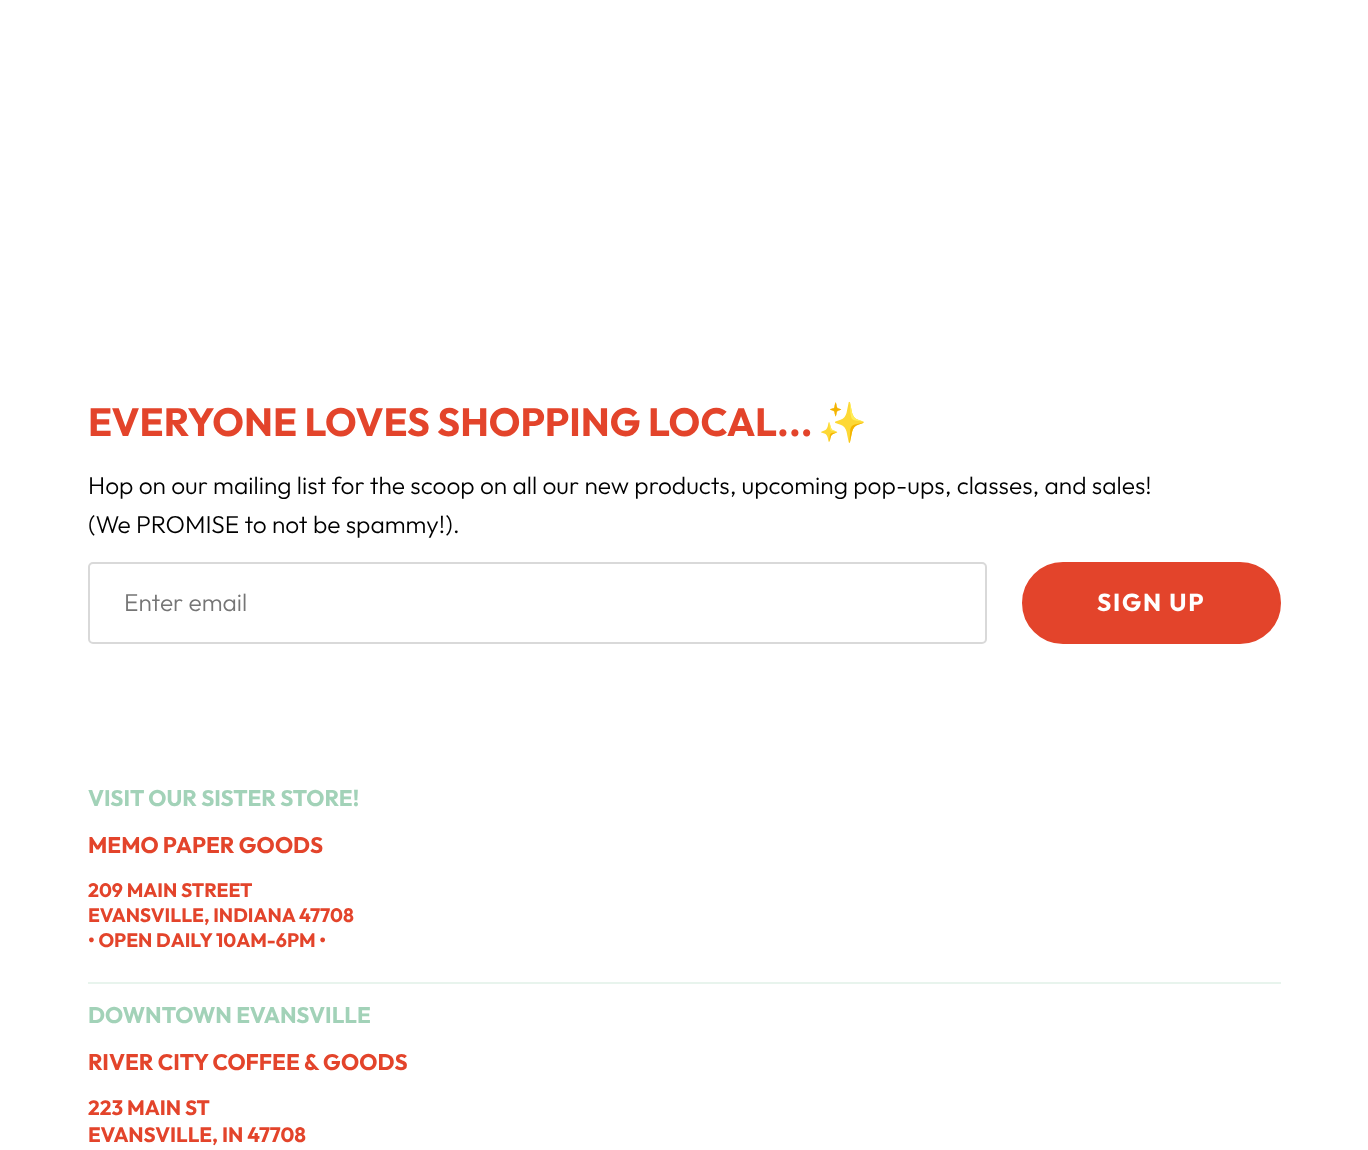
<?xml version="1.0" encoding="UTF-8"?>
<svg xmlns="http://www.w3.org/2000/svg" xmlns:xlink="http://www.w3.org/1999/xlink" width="1368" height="1150">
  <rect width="100%" height="100%" fill="#ffffff" />
  <rect x="89" y="563" width="897" height="80" rx="4" fill="none" stroke="#d9d9d9" stroke-width="2" />
  <rect x="1023" y="563" width="257" height="80" rx="40" fill="#e3442b" stroke="#e3442b" stroke-width="2" />
  <rect x="88" y="982" width="1193" height="2" fill="#e8f4ed" />
  <text x="88" y="436" style="font-family: Outfit; font-size: 39.25px; font-weight: bold; fill: #e3442b">EVERYONE LOVES SHOPPING LOCAL...</text>
  <text x="818" y="436" style="font-family: Noto Color Emoji; font-size: 39.25px; font-weight: bold; fill: #e3442b">✨</text>
  <text x="88" y="494" style="font-family: Outfit; font-size: 24.5px; font-weight: 300; fill: #000000">Hop on our mailing list for the scoop on all our new products, upcoming pop-ups, classes, and sales!</text>
  <text x="88" y="533" style="font-family: Outfit; font-size: 24.5px; font-weight: 300; fill: #000000">(We PROMISE to not be spammy!).</text>
  <text x="124" y="611" style="font-family: Outfit; font-size: 24.5px; font-weight: 300; fill: #757575">Enter email</text>
  <text x="1097" y="611" style="font-family: Outfit; font-size: 24.5px; font-weight: bold; letter-spacing: 1.75px; fill: #ffffff">SIGN UP</text>
  <text x="88" y="806" style="font-family: Outfit; font-size: 22.5px; font-weight: bold; fill: #a2d2b8">VISIT OUR SISTER STORE!</text>
  <text x="88" y="853" style="font-family: Outfit; font-size: 22.5px; font-weight: bold; fill: #e3442b">MEMO PAPER GOODS</text>
  <text x="88" y="897" style="font-family: Outfit; font-size: 19.4px; font-weight: bold; fill: #e3442b">209 MAIN STREET</text>
  <text x="88" y="922" style="font-family: Outfit; font-size: 19.4px; font-weight: bold; fill: #e3442b">EVANSVILLE, INDIANA 47708</text>
  <text x="88" y="947" style="font-family: Outfit; font-size: 19.4px; font-weight: bold; fill: #e3442b">• OPEN DAILY 10AM-6PM •</text>
  <text x="88" y="1023" style="font-family: Outfit; font-size: 22.5px; font-weight: bold; fill: #a2d2b8">DOWNTOWN EVANSVILLE</text>
  <text x="88" y="1070" style="font-family: Outfit; font-size: 22.5px; font-weight: bold; fill: #e3442b">RIVER CITY COFFEE &amp; GOODS</text>
  <text x="88" y="1115" style="font-family: Outfit; font-size: 20.75px; font-weight: bold; fill: #e3442b">223 MAIN ST</text>
  <text x="88" y="1142" style="font-family: Outfit; font-size: 20.75px; font-weight: bold; fill: #e3442b">EVANSVILLE, IN 47708</text>
</svg>
